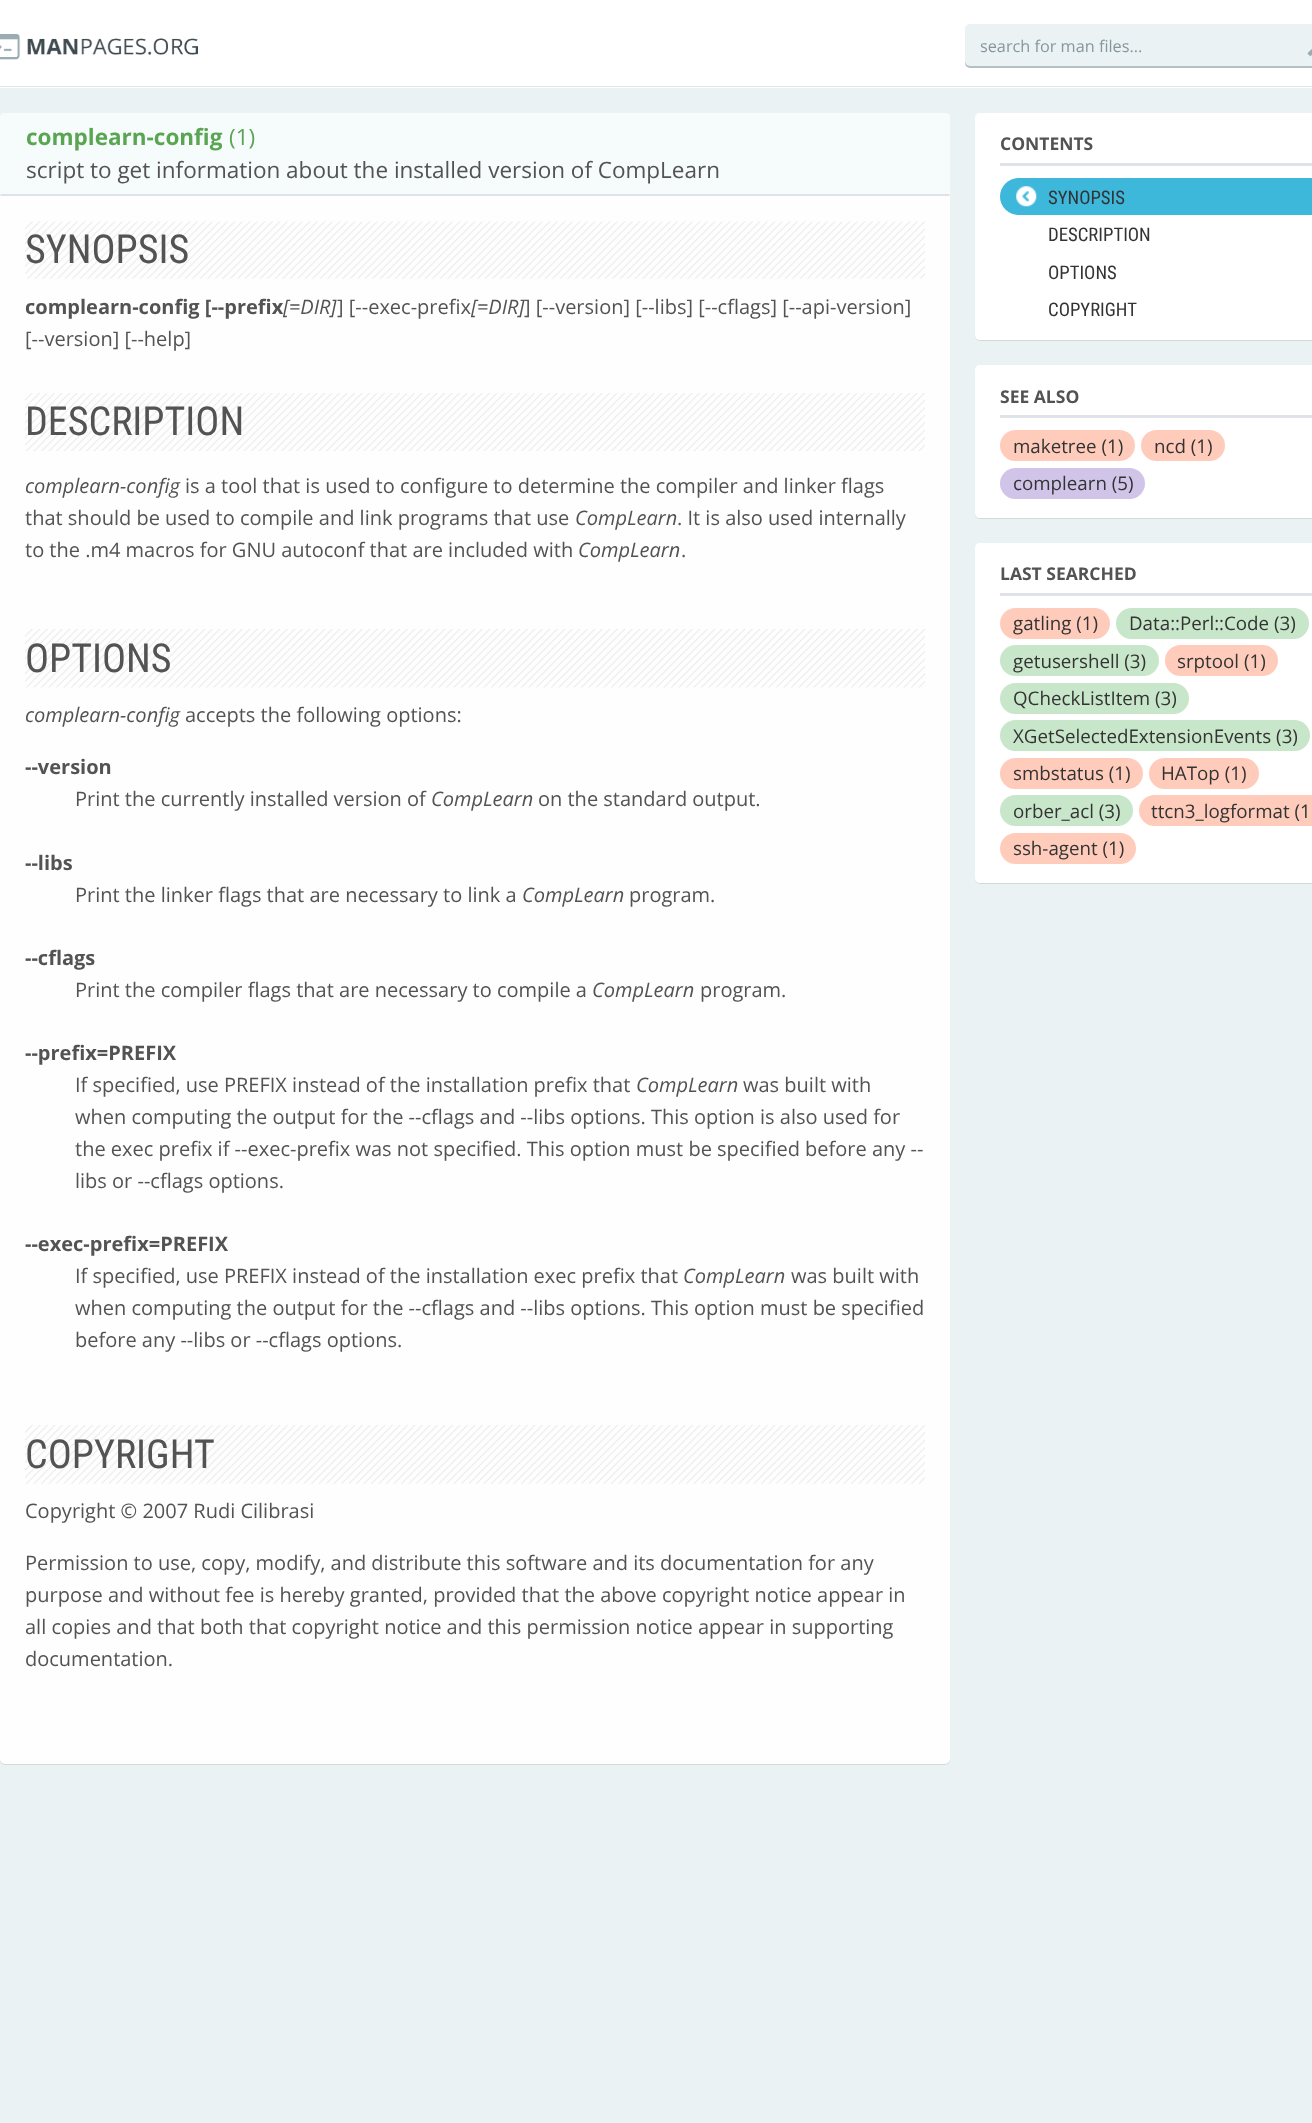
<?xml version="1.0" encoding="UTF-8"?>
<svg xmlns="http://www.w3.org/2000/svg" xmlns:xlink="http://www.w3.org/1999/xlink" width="1312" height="2123">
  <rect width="100%" height="100%" fill="#eaf2f4" />
  <rect width="1312" height="88" fill="#ffffff" />
  <rect y="86" width="1312" height="1" fill="#dce5e7" />
  <image x="0" y="34" width="198" height="26" xlink:href="image1.png" />
  <rect x="965" y="25" width="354" height="43" rx="5" fill="#062f37" fill-opacity="0.3" filter="blur(0.5px)" />
  <rect x="965" y="24" width="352" height="42" rx="5" fill="#eaf2f4" />
  <image x="1307" y="49" width="5" height="8" xlink:href="image2.png" />
  <rect y="114" width="950" height="1651" rx="5" fill="#000000" fill-opacity="0.1" filter="blur(0.5px)" />
  <rect y="113" width="950" height="1651" rx="5" fill="#fefefe" />
  <path d="M 4 113 h 942 c 2 0 4 2 4 4 v 79 h -950 v -79 c 0 -2 2 -4 4 -4 z" fill="#f6fbfc" />
  <path d="M 950 196 h -950 l 1 -2 h 948 z" fill="#dfe3e9" />
  <image x="25" y="221" width="900" height="58" xlink:href="image3.png" />
  <image x="25" y="393" width="900" height="58" xlink:href="image4.png" />
  <image x="25" y="629" width="900" height="59" xlink:href="image5.png" />
  <image x="25" y="1425" width="900" height="59" xlink:href="image6.png" />
  <rect x="975" y="114" width="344" height="227" rx="5" fill="#000000" fill-opacity="0.1" filter="blur(0.5px)" />
  <path d="M 980 113 h 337 v 227 h -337 c -3 0 -5 -2 -5 -5 v -217 c 0 -3 2 -5 5 -5 z" fill="#ffffff" />
  <rect x="1000" y="163" width="312" height="3" fill="#dfe3e9" />
  <rect x="1000" y="178" width="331" height="37" rx="18.5" fill="#3db8db" />
  <image x="1016" y="186" width="21" height="21" xlink:href="image7.png" />
  <rect x="975" y="366" width="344" height="153" rx="5" fill="#000000" fill-opacity="0.1" filter="blur(0.5px)" />
  <path d="M 980 365 h 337 v 153 h -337 c -3 0 -5 -2 -5 -5 v -143 c 0 -3 2 -5 5 -5 z" fill="#ffffff" />
  <rect x="1000" y="415" width="312" height="3" fill="#dfe3e9" />
  <rect x="1000" y="430" width="135" height="31" rx="15.5" fill="#ffccbc" />
  <rect x="1141" y="430" width="84" height="31" rx="15.5" fill="#ffccbc" />
  <rect x="1000" y="468" width="145" height="31" rx="15.5" fill="#d1c4e9" />
  <rect x="975" y="544" width="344" height="340" rx="5" fill="#000000" fill-opacity="0.1" filter="blur(0.5px)" />
  <path d="M 980 543 h 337 v 340 h -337 c -3 0 -5 -2 -5 -5 v -330 c 0 -3 2 -5 5 -5 z" fill="#ffffff" />
  <rect x="1000" y="593" width="312" height="3" fill="#dfe3e9" />
  <rect x="1000" y="608" width="110" height="31" rx="15.5" fill="#ffccbc" />
  <rect x="1116" y="608" width="193" height="31" rx="15.5" fill="#c8e6c9" />
  <rect x="1000" y="645" width="159" height="31" rx="15.5" fill="#c8e6c9" />
  <rect x="1165" y="645" width="113" height="31" rx="15.5" fill="#ffccbc" />
  <rect x="1000" y="683" width="189" height="31" rx="15.5" fill="#c8e6c9" />
  <rect x="1000" y="720" width="310" height="31" rx="15.5" fill="#c8e6c9" />
  <rect x="1000" y="758" width="143" height="31" rx="15.5" fill="#ffccbc" />
  <rect x="1149" y="758" width="110" height="31" rx="15.5" fill="#ffccbc" />
  <rect x="1000" y="795" width="133" height="31" rx="15.5" fill="#c8e6c9" />
  <rect x="1139" y="795" width="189" height="31" rx="15.5" fill="#ffccbc" />
  <rect x="1000" y="833" width="136" height="31" rx="15.5" fill="#ffccbc" />
  <text x="980" y="52" style="font-family: Open Sans; font-size: 16.25px; fill: #86969d">search for man files...</text>
  <text x="26" y="145" style="font-family: Open Sans; font-size: 22.5px; font-weight: bold; fill: #59a552">complearn-config</text>
  <text x="229" y="145" style="font-family: Open Sans; font-size: 22.5px; fill: #59a552">(1)</text>
  <text x="26" y="178" style="font-family: Open Sans; font-size: 22.5px; fill: #535353">script to get information about the installed version of CompLearn</text>
  <text x="25" y="263" style="font-family: Roboto Condensed; font-size: 40px; fill: #535353">SYNOPSIS</text>
  <text x="25" y="314" style="font-family: Open Sans; font-size: 20px; font-weight: bold; fill: #535353">complearn-config [--prefix</text>
  <text x="283" y="314" style="font-family: Open Sans; font-size: 20px; font-style: italic; fill: #535353">[=DIR]</text>
  <text x="337" y="314" style="font-family: Open Sans; font-size: 20px; fill: #535353">] [--exec-prefix</text>
  <text x="471" y="314" style="font-family: Open Sans; font-size: 20px; font-style: italic; fill: #535353">[=DIR]</text>
  <text x="524" y="314" style="font-family: Open Sans; font-size: 20px; fill: #535353">] [--version] [--libs] [--cflags] [--api-version]</text>
  <text x="25" y="346" style="font-family: Open Sans; font-size: 20px; fill: #535353">[--version] [--help]</text>
  <text x="25" y="435" style="font-family: Roboto Condensed; font-size: 40px; fill: #535353">DESCRIPTION</text>
  <text x="25" y="493" style="font-family: Open Sans; font-size: 20px; font-style: italic; fill: #535353">complearn-config</text>
  <text x="185" y="493" style="font-family: Open Sans; font-size: 20px; fill: #535353">is a tool that is used to configure to determine the compiler and linker flags</text>
  <text x="25" y="525" style="font-family: Open Sans; font-size: 20px; fill: #535353">that should be used to compile and link programs that use</text>
  <text x="575" y="525" style="font-family: Open Sans; font-size: 20px; font-style: italic; fill: #535353">CompLearn</text>
  <text x="677" y="525" style="font-family: Open Sans; font-size: 20px; fill: #535353">. It is also used internally</text>
  <text x="25" y="557" style="font-family: Open Sans; font-size: 20px; fill: #535353">to the .m4 macros for GNU autoconf that are included with</text>
  <text x="578" y="557" style="font-family: Open Sans; font-size: 20px; font-style: italic; fill: #535353">CompLearn</text>
  <text x="681" y="557" style="font-family: Open Sans; font-size: 20px; fill: #535353">.</text>
  <text x="25" y="672" style="font-family: Roboto Condensed; font-size: 40px; fill: #535353">OPTIONS</text>
  <text x="25" y="722" style="font-family: Open Sans; font-size: 20px; font-style: italic; fill: #535353">complearn-config</text>
  <text x="185" y="722" style="font-family: Open Sans; font-size: 20px; fill: #535353">accepts the following options:</text>
  <text x="25" y="774" style="font-family: Open Sans; font-size: 20px; font-weight: bold; fill: #535353">--version</text>
  <text x="75" y="806" style="font-family: Open Sans; font-size: 20px; fill: #535353">Print the currently installed version of</text>
  <text x="431" y="806" style="font-family: Open Sans; font-size: 20px; font-style: italic; fill: #535353">CompLearn</text>
  <text x="538" y="806" style="font-family: Open Sans; font-size: 20px; fill: #535353">on the standard output.</text>
  <text x="25" y="870" style="font-family: Open Sans; font-size: 20px; font-weight: bold; fill: #535353">--libs</text>
  <text x="75" y="902" style="font-family: Open Sans; font-size: 20px; fill: #535353">Print the linker flags that are necessary to link a</text>
  <text x="522" y="902" style="font-family: Open Sans; font-size: 20px; font-style: italic; fill: #535353">CompLearn</text>
  <text x="629" y="902" style="font-family: Open Sans; font-size: 20px; fill: #535353">program.</text>
  <text x="25" y="965" style="font-family: Open Sans; font-size: 20px; font-weight: bold; fill: #535353">--cflags</text>
  <text x="75" y="997" style="font-family: Open Sans; font-size: 20px; fill: #535353">Print the compiler flags that are necessary to compile a</text>
  <text x="592" y="997" style="font-family: Open Sans; font-size: 20px; font-style: italic; fill: #535353">CompLearn</text>
  <text x="700" y="997" style="font-family: Open Sans; font-size: 20px; fill: #535353">program.</text>
  <text x="25" y="1060" style="font-family: Open Sans; font-size: 20px; font-weight: bold; fill: #535353">--prefix=PREFIX</text>
  <text x="75" y="1092" style="font-family: Open Sans; font-size: 20px; fill: #535353">If specified, use PREFIX instead of the installation prefix that</text>
  <text x="636" y="1092" style="font-family: Open Sans; font-size: 20px; font-style: italic; fill: #535353">CompLearn</text>
  <text x="743" y="1092" style="font-family: Open Sans; font-size: 20px; fill: #535353">was built with</text>
  <text x="75" y="1124" style="font-family: Open Sans; font-size: 20px; fill: #535353">when computing the output for the --cflags and --libs options. This option is also used for</text>
  <text x="75" y="1156" style="font-family: Open Sans; font-size: 20px; fill: #535353">the exec prefix if --exec-prefix was not specified. This option must be specified before any --</text>
  <text x="75" y="1188" style="font-family: Open Sans; font-size: 20px; fill: #535353">libs or --cflags options.</text>
  <text x="25" y="1251" style="font-family: Open Sans; font-size: 20px; font-weight: bold; fill: #535353">--exec-prefix=PREFIX</text>
  <text x="75" y="1283" style="font-family: Open Sans; font-size: 20px; fill: #535353">If specified, use PREFIX instead of the installation exec prefix that</text>
  <text x="683" y="1283" style="font-family: Open Sans; font-size: 20px; font-style: italic; fill: #535353">CompLearn</text>
  <text x="791" y="1283" style="font-family: Open Sans; font-size: 20px; fill: #535353">was built with</text>
  <text x="75" y="1315" style="font-family: Open Sans; font-size: 20px; fill: #535353">when computing the output for the --cflags and --libs options. This option must be specified</text>
  <text x="75" y="1347" style="font-family: Open Sans; font-size: 20px; fill: #535353">before any --libs or --cflags options.</text>
  <text x="25" y="1468" style="font-family: Roboto Condensed; font-size: 40px; fill: #535353">COPYRIGHT</text>
  <text x="25" y="1518" style="font-family: Open Sans; font-size: 20px; fill: #535353">Copyright © 2007 Rudi Cilibrasi</text>
  <text x="25" y="1570" style="font-family: Open Sans; font-size: 20px; fill: #535353">Permission to use, copy, modify, and distribute this software and its documentation for any</text>
  <text x="25" y="1602" style="font-family: Open Sans; font-size: 20px; fill: #535353">purpose and without fee is hereby granted, provided that the above copyright notice appear in</text>
  <text x="25" y="1634" style="font-family: Open Sans; font-size: 20px; fill: #535353">all copies and that both that copyright notice and this permission notice appear in supporting</text>
  <text x="25" y="1666" style="font-family: Open Sans; font-size: 20px; fill: #535353">documentation.</text>
  <text x="1000" y="150" style="font-family: Open Sans; font-size: 17.5px; font-weight: bold; fill: #535353">CONTENTS</text>
  <text x="1048" y="204" style="font-family: Roboto Condensed; font-size: 18.75px; fill: #333333">SYNOPSIS</text>
  <text x="1048" y="241" style="font-family: Roboto Condensed; font-size: 18.75px; fill: #333333">DESCRIPTION</text>
  <text x="1048" y="279" style="font-family: Roboto Condensed; font-size: 18.75px; fill: #333333">OPTIONS</text>
  <text x="1048" y="316" style="font-family: Roboto Condensed; font-size: 18.75px; fill: #333333">COPYRIGHT</text>
  <text x="1000" y="403" style="font-family: Open Sans; font-size: 17.5px; font-weight: bold; fill: #535353">SEE ALSO</text>
  <text x="1013" y="453" style="font-family: Open Sans; font-size: 18.75px; fill: #333333">maketree (1)</text>
  <text x="1154" y="453" style="font-family: Open Sans; font-size: 18.75px; fill: #333333">ncd (1)</text>
  <text x="1013" y="490" style="font-family: Open Sans; font-size: 18.75px; fill: #333333">complearn (5)</text>
  <text x="1000" y="580" style="font-family: Open Sans; font-size: 17.5px; font-weight: bold; fill: #535353">LAST SEARCHED</text>
  <text x="1013" y="630" style="font-family: Open Sans; font-size: 18.75px; fill: #333333">gatling (1)</text>
  <text x="1129" y="630" style="font-family: Open Sans; font-size: 18.75px; fill: #333333">Data::Perl::Code (3)</text>
  <text x="1013" y="668" style="font-family: Open Sans; font-size: 18.75px; fill: #333333">getusershell (3)</text>
  <text x="1177" y="668" style="font-family: Open Sans; font-size: 18.75px; fill: #333333">srptool (1)</text>
  <text x="1013" y="705" style="font-family: Open Sans; font-size: 18.75px; fill: #333333">QCheckListItem (3)</text>
  <text x="1013" y="743" style="font-family: Open Sans; font-size: 18.75px; fill: #333333">XGetSelectedExtensionEvents (3)</text>
  <text x="1013" y="780" style="font-family: Open Sans; font-size: 18.75px; fill: #333333">smbstatus (1)</text>
  <text x="1161" y="780" style="font-family: Open Sans; font-size: 18.75px; fill: #333333">HATop (1)</text>
  <text x="1013" y="818" style="font-family: Open Sans; font-size: 18.75px; fill: #333333">orber_acl (3)</text>
  <text x="1151" y="818" style="font-family: Open Sans; font-size: 18.75px; fill: #333333">ttcn3_logformat (1</text>
  <text x="1013" y="855" style="font-family: Open Sans; font-size: 18.75px; fill: #333333">ssh-agent (1)</text>
</svg>
